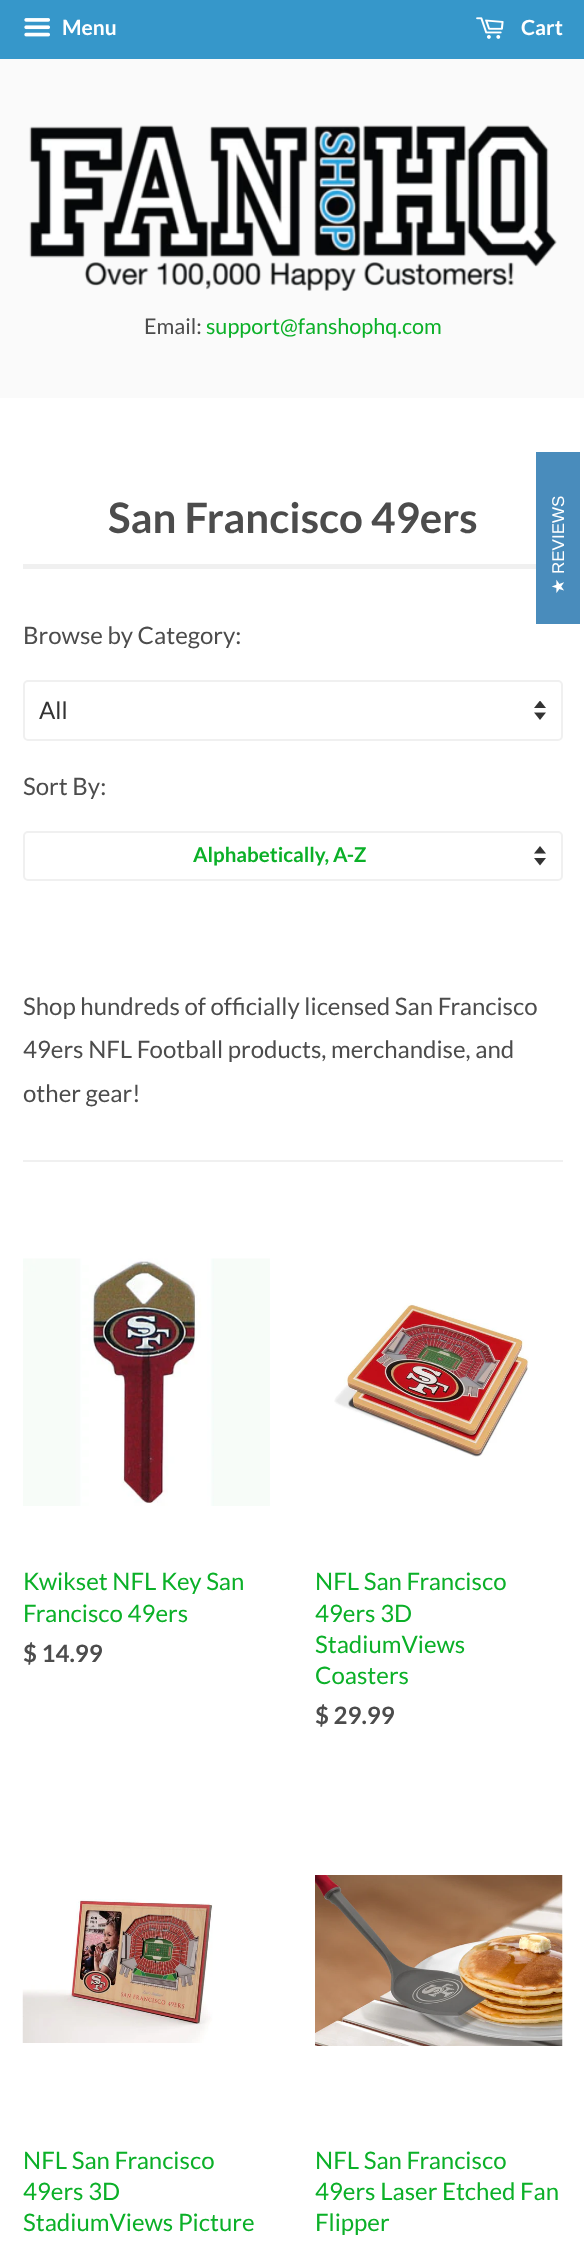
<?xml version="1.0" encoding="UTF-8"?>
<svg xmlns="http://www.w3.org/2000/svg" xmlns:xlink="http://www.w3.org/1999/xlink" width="584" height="2256">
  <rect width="100%" height="100%" fill="#ffffff" />
  <rect width="584" height="59" fill="#3697ca" />
  <image x="24" y="18" width="26" height="19" xlink:href="image1.png" />
  <image x="476" y="17" width="28" height="22" xlink:href="image2.png" />
  <rect y="59" width="584" height="339" fill="#fafafa" />
  <image x="29" y="125" width="528" height="166" xlink:href="image3.png" />
  <rect x="536" y="452" width="44" height="172" fill="#498cbc" />
  <rect x="23" y="564" width="513" height="5" fill="#f0f0f0" />
  <image x="534" y="701" width="12" height="19" xlink:href="image4.png" />
  <rect x="24" y="681" width="538" height="59" rx="4" fill="none" stroke="#f0f0f0" stroke-width="2" />
  <image x="534" y="846" width="12" height="20" xlink:href="image5.png" />
  <rect x="24" y="832" width="538" height="48" rx="4" fill="none" stroke="#f0f0f0" stroke-width="2" />
  <rect x="23" y="1160" width="540" height="2" fill="#f0f0f0" />
  <image x="23" y="1258" width="247" height="248" xlink:href="image6.png" />
  <image x="334" y="1303" width="195" height="154" xlink:href="image7.png" />
  <image x="22" y="1899" width="191" height="144" xlink:href="image8.png" />
  <image x="315" y="1875" width="248" height="171" xlink:href="image9.png" />
  <text x="62" y="35" style="font-family: Lato; font-size: 21px; font-weight: bold; fill: #ffffff">Menu</text>
  <text x="521" y="35" style="font-family: Lato; font-size: 21px; font-weight: bold; fill: #ffffff">Cart</text>
  <text x="144" y="334" style="font-family: Lato; font-size: 21.6px; fill: #4c4c4c">Email:</text>
  <text x="206" y="334" style="font-family: Lato; font-size: 21.6px; fill: #0bb028">support@fanshophq.com</text>
  <text x="564" y="574" transform="rotate(-90 564 574)" style="font-family: Liberation Sans; font-size: 17px; fill: #ffffff">REVIEWS</text>
  <text x="564" y="594" transform="rotate(-90 564 594)" style="font-family: DejaVu Sans; font-size: 17px; fill: #ffffff">★</text>
  <text x="108" y="533" style="font-family: Lato; font-size: 42px; font-weight: bold; fill: #4c4c4c">San Francisco 49ers</text>
  <text x="23" y="644" style="font-family: Lato; font-size: 24px; fill: #4c4c4c">Browse by Category:</text>
  <text x="39" y="719" style="font-family: Lato; font-size: 24px; fill: #333333">All</text>
  <text x="23" y="795" style="font-family: Lato; font-size: 24px; fill: #4c4c4c">Sort By:</text>
  <text x="193" y="862" style="font-family: Lato; font-size: 20.5px; font-weight: bold; fill: #0bb028">Alphabetically, A-Z</text>
  <text x="23" y="1015" style="font-family: Lato; font-size: 24px; fill: #4c4c4c">Shop hundreds of officially licensed San Francisco</text>
  <text x="23" y="1058" style="font-family: Lato; font-size: 24px; fill: #4c4c4c">49ers NFL Football products, merchandise, and</text>
  <text x="23" y="1102" style="font-family: Lato; font-size: 24px; fill: #4c4c4c">other gear!</text>
  <text x="23" y="1590" style="font-family: Lato; font-size: 24px; fill: #0bb028">Kwikset NFL Key San</text>
  <text x="23" y="1622" style="font-family: Lato; font-size: 24px; fill: #0bb028">Francisco 49ers</text>
  <text x="23" y="1662" style="font-family: Lato; font-size: 24px; font-weight: bold; fill: #4c4c4c">$ 14.99</text>
  <text x="315" y="1590" style="font-family: Lato; font-size: 24px; fill: #0bb028">NFL San Francisco</text>
  <text x="315" y="1622" style="font-family: Lato; font-size: 24px; fill: #0bb028">49ers 3D</text>
  <text x="315" y="1653" style="font-family: Lato; font-size: 24px; fill: #0bb028">StadiumViews</text>
  <text x="315" y="1684" style="font-family: Lato; font-size: 24px; fill: #0bb028">Coasters</text>
  <text x="315" y="1724" style="font-family: Lato; font-size: 24px; font-weight: bold; fill: #4c4c4c">$ 29.99</text>
  <text x="23" y="2169" style="font-family: Lato; font-size: 24px; fill: #0bb028">NFL San Francisco</text>
  <text x="23" y="2200" style="font-family: Lato; font-size: 24px; fill: #0bb028">49ers 3D</text>
  <text x="23" y="2231" style="font-family: Lato; font-size: 24px; fill: #0bb028">StadiumViews Picture</text>
  <text x="315" y="2169" style="font-family: Lato; font-size: 24px; fill: #0bb028">NFL San Francisco</text>
  <text x="315" y="2200" style="font-family: Lato; font-size: 24px; fill: #0bb028">49ers Laser Etched Fan</text>
  <text x="315" y="2231" style="font-family: Lato; font-size: 24px; fill: #0bb028">Flipper</text>
</svg>
